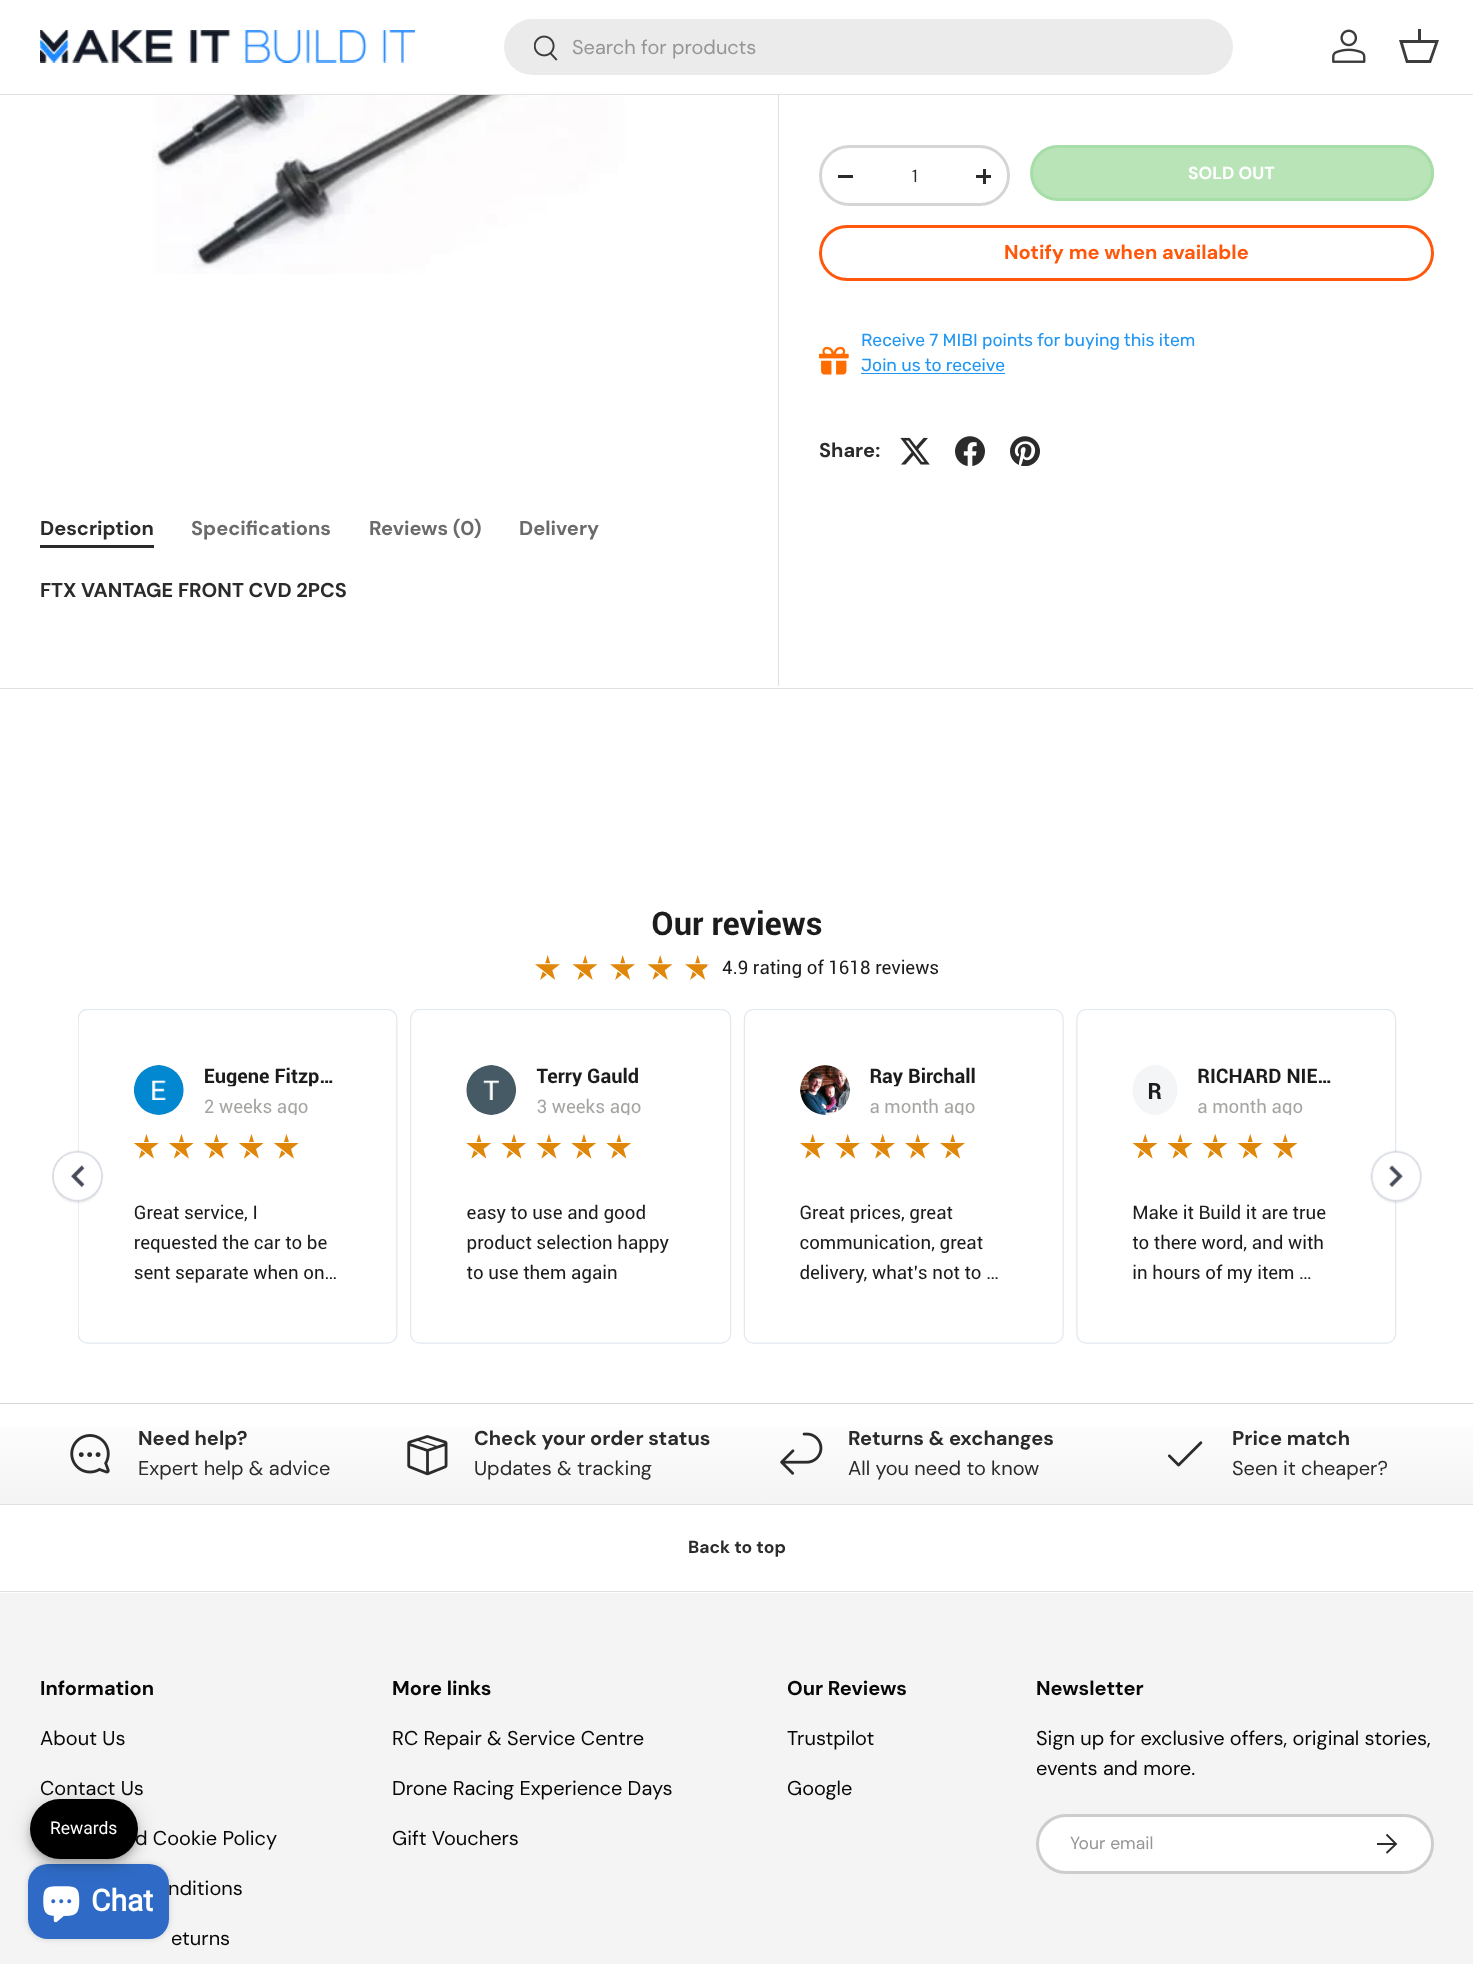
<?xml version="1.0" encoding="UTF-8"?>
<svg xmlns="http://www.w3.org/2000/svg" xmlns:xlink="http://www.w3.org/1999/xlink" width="1473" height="1964">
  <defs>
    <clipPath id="clip1"><rect x="1030" y="145" width="404" height="56" rx="28" /></clipPath>
    <linearGradient id="g1" gradientUnits="userSpaceOnUse" x1="1061" y1="31" x2="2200" y2="315"><stop offset="0.6" stop-color="#b8e4b8" /><stop offset="0.6" stop-color="#a7dda7" /><stop offset="1" stop-color="#a7dda7" /></linearGradient>
    <linearGradient id="g2" gradientUnits="userSpaceOnUse" x1="737" y1="1404" x2="737" y2="1504"><stop offset="0" stop-color="#ffffff" /><stop offset="1" stop-color="#f4f4f4" /></linearGradient>
  </defs>
  <rect width="100%" height="100%" fill="#ffffff" />
  <rect y="94" width="1473" height="1" fill="#e2e2e2" />
  <image x="40" y="30" width="375" height="33" xlink:href="image1.png" />
  <rect x="504" y="19" width="729" height="56" rx="28" fill="#ecebeb" />
  <image x="534" y="35" width="24" height="26" xlink:href="image2.png" />
  <image x="1332" y="29" width="34" height="34" xlink:href="image3.png" />
  <path d="M 1418 40 v -11 h 3 v 11 h 18 l -8 23 h -25 l -7 -23 z m -15 3 l 5 17 h 21 l 6 -17 z" fill="#3d3b3b" />
  <image x="152" y="95" width="476" height="179" xlink:href="image4.png" />
  <rect x="820.5" y="146.5" width="188" height="58" rx="29" fill="none" stroke="#d4d5d4" stroke-width="3" />
  <rect x="838" y="175" width="15" height="3" fill="#2a2b2a" />
  <rect x="976" y="175" width="15" height="3" fill="#2a2b2a" />
  <rect x="983" y="169" width="3" height="15" fill="#2a2b2a" />
  <g clip-path="url(#clip1)">
    <rect x="1033" y="148" width="401" height="51" fill="url(#g1)" />
  </g>
  <rect x="1031.5" y="146.5" width="401" height="53" rx="26.5" fill="none" stroke="#a7dda7" stroke-width="3" />
  <rect x="820.5" y="226.5" width="612" height="53" rx="26.5" fill="none" stroke="#ff580d" stroke-width="3" />
  <image x="819" y="346" width="30" height="29" xlink:href="image5.png" />
  <rect x="861" y="373" width="144" height="1" fill="#2196f3" />
  <image x="900" y="437" width="30" height="28" xlink:href="image6.png" />
  <image x="955" y="436" width="30" height="30" xlink:href="image7.png" />
  <image x="1010" y="436" width="30" height="30" xlink:href="image8.png" />
  <rect x="778" y="95" width="1" height="591" fill="#dfdfdf" />
  <rect x="40" y="545" width="114" height="3" fill="#2a2b2a" />
  <rect y="688" width="1473" height="1" fill="#dfdfdf" />
  <image x="52" y="910" width="1370" height="434" xlink:href="image9.png" />
  <rect y="1427" width="1473" height="77" fill="url(#g2)" />
  <rect y="1403" width="1473" height="1" fill="#d6d6d6" />
  <image x="70" y="1434" width="40" height="40" xlink:href="image10.png" />
  <image x="407" y="1435" width="41" height="41" xlink:href="image11.png" />
  <image x="780" y="1432" width="43" height="43" xlink:href="image12.png" />
  <image x="1167" y="1441" width="36" height="26" xlink:href="image13.png" />
  <rect y="1504" width="1473" height="1" fill="#dfdfdf" />
  <rect y="1591" width="1473" height="1" fill="#dfdfdf" />
  <rect y="1593" width="1473" height="371" fill="#f4f4f4" />
  <rect x="1036" y="1814" width="398" height="60" rx="30" fill="#ffffff" />
  <rect x="1037.5" y="1815.5" width="395" height="57" rx="28.5" fill="none" stroke="#070707" stroke-opacity="0.2" stroke-width="3" />
  <path d="M 1377 1844 h 18.5 m -9 -9.5 l 9.5 9.5 l -9.5 9" fill="none" stroke="#2a2b2a" stroke-width="1.9" />
  <rect x="28" y="1864" width="141" height="75" rx="20" fill="#000000" fill-opacity="0.15" filter="blur(3px)" />
  <rect x="28" y="1864" width="141" height="75" rx="20" fill="#2f6bc6" />
  <image x="43" y="1886" width="37" height="37" xlink:href="image14.png" />
  <rect x="30" y="1800" width="108" height="60" rx="30" fill="#000000" fill-opacity="0.12" filter="blur(11px)" />
  <rect x="30" y="1806" width="108" height="60" rx="30" fill="#000000" fill-opacity="0.14" filter="blur(6px)" />
  <rect x="31" y="1804" width="105" height="57" rx="28.5" fill="#000000" fill-opacity="0.2" filter="blur(3px)" />
  <text x="572" y="54" style="font-family: 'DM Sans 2'; font-size: 20px; fill: #959595">Search for products</text>
  <text x="912" y="182" style="font-family: DM Sans; font-size: 17.5px; fill: #2a2b2a">1</text>
  <text x="1188" y="179" style="font-family: 'DM Sans 2'; font-size: 17.5px; font-weight: bold; fill: #ffffff">SOLD OUT</text>
  <text x="1004" y="259" style="font-family: DM Sans; font-size: 20px; font-weight: bold; fill: #ff580d">Notify me when available</text>
  <text x="861" y="346" style="font-family: Rubik; font-size: 17.5px; font-weight: 300; fill: #2196f3">Receive 7 MIBI points for buying this item</text>
  <text x="861" y="371" style="font-family: Rubik; font-size: 17.5px; font-weight: 300; fill: #2196f3">Join us to receive</text>
  <text x="819" y="457" style="font-family: DM Sans; font-size: 20px; font-weight: bold; fill: #2a2b2a">Share:</text>
  <text x="40" y="535" style="font-family: DM Sans; font-size: 20px; font-weight: bold; fill: #2a2b2a">Description</text>
  <text x="191" y="535" style="font-family: DM Sans; font-size: 20px; font-weight: bold; fill: #6a6b6a">Specifications</text>
  <text x="369" y="535" style="font-family: DM Sans; font-size: 20px; font-weight: bold; fill: #6a6b6a">Reviews (0)</text>
  <text x="519" y="535" style="font-family: DM Sans; font-size: 20px; font-weight: bold; fill: #6a6b6a">Delivery</text>
  <text x="40" y="597" style="font-family: DM Sans; font-size: 20px; font-weight: bold; fill: #2a2b2a">FTX VANTAGE FRONT CVD 2PCS</text>
  <text x="138" y="1445" style="font-family: DM Sans; font-size: 20px; font-weight: bold; fill: #2a2b2a">Need help?</text>
  <text x="138" y="1475" style="font-family: 'DM Sans 2'; font-size: 20px; fill: #2a2b2a">Expert help &amp; advice</text>
  <text x="474" y="1445" style="font-family: DM Sans; font-size: 20px; font-weight: bold; fill: #2a2b2a">Check your order status</text>
  <text x="474" y="1475" style="font-family: 'DM Sans 2'; font-size: 20px; fill: #2a2b2a">Updates &amp; tracking</text>
  <text x="848" y="1445" style="font-family: DM Sans; font-size: 20px; font-weight: bold; fill: #2a2b2a">Returns &amp; exchanges</text>
  <text x="848" y="1475" style="font-family: 'DM Sans 2'; font-size: 20px; fill: #2a2b2a">All you need to know</text>
  <text x="1232" y="1445" style="font-family: DM Sans; font-size: 20px; font-weight: bold; fill: #2a2b2a">Price match</text>
  <text x="1232" y="1475" style="font-family: 'DM Sans 2'; font-size: 20px; fill: #2a2b2a">Seen it cheaper?</text>
  <text x="688" y="1553" style="font-family: 'DM Sans 2'; font-size: 17.5px; font-weight: bold; fill: #2a2b2a">Back to top</text>
  <text x="40" y="1695" style="font-family: DM Sans; font-size: 20px; font-weight: bold; fill: #070707">Information</text>
  <text x="40" y="1745" style="font-family: 'DM Sans 2'; font-size: 20px; fill: #070707">About Us</text>
  <text x="40" y="1795" style="font-family: 'DM Sans 2'; font-size: 20px; fill: #070707">Contact Us</text>
  <text x="135" y="1845" style="font-family: 'DM Sans 2'; font-size: 20px; fill: #070707">d Cookie Policy</text>
  <text x="168" y="1895" style="font-family: 'DM Sans 2'; font-size: 20px; fill: #070707">nditions</text>
  <text x="171" y="1945" style="font-family: 'DM Sans 2'; font-size: 20px; fill: #070707">eturns</text>
  <text x="392" y="1695" style="font-family: DM Sans; font-size: 20px; font-weight: bold; fill: #070707">More links</text>
  <text x="392" y="1745" style="font-family: 'DM Sans 2'; font-size: 20px; fill: #070707">RC Repair &amp; Service Centre</text>
  <text x="392" y="1795" style="font-family: 'DM Sans 2'; font-size: 20px; fill: #070707">Drone Racing Experience Days</text>
  <text x="392" y="1845" style="font-family: 'DM Sans 2'; font-size: 20px; fill: #070707">Gift Vouchers</text>
  <text x="787" y="1695" style="font-family: DM Sans; font-size: 20px; font-weight: bold; fill: #070707">Our Reviews</text>
  <text x="787" y="1745" style="font-family: 'DM Sans 2'; font-size: 20px; fill: #070707">Trustpilot</text>
  <text x="787" y="1795" style="font-family: 'DM Sans 2'; font-size: 20px; fill: #070707">Google</text>
  <text x="1036" y="1695" style="font-family: DM Sans; font-size: 20px; font-weight: bold; fill: #070707">Newsletter</text>
  <text x="1036" y="1745" style="font-family: 'DM Sans 2'; font-size: 20px; fill: #070707">Sign up for exclusive offers, original stories,</text>
  <text x="1036" y="1775" style="font-family: 'DM Sans 2'; font-size: 20px; fill: #070707">events and more.</text>
  <text x="1070" y="1849" style="font-family: DM Sans; font-size: 17.5px; fill: #959595">Your email</text>
  <rect x="30" y="1799" width="108" height="60" rx="30" fill="#000000" />
  <text x="50" y="1834" style="font-family: Roboto; font-size: 17.5px; fill: #ffffff">Rewards</text>
  <text x="91" y="1911" style="font-family: Roboto; font-size: 30px; font-weight: bold; fill: #ffffff">Chat</text>
</svg>
